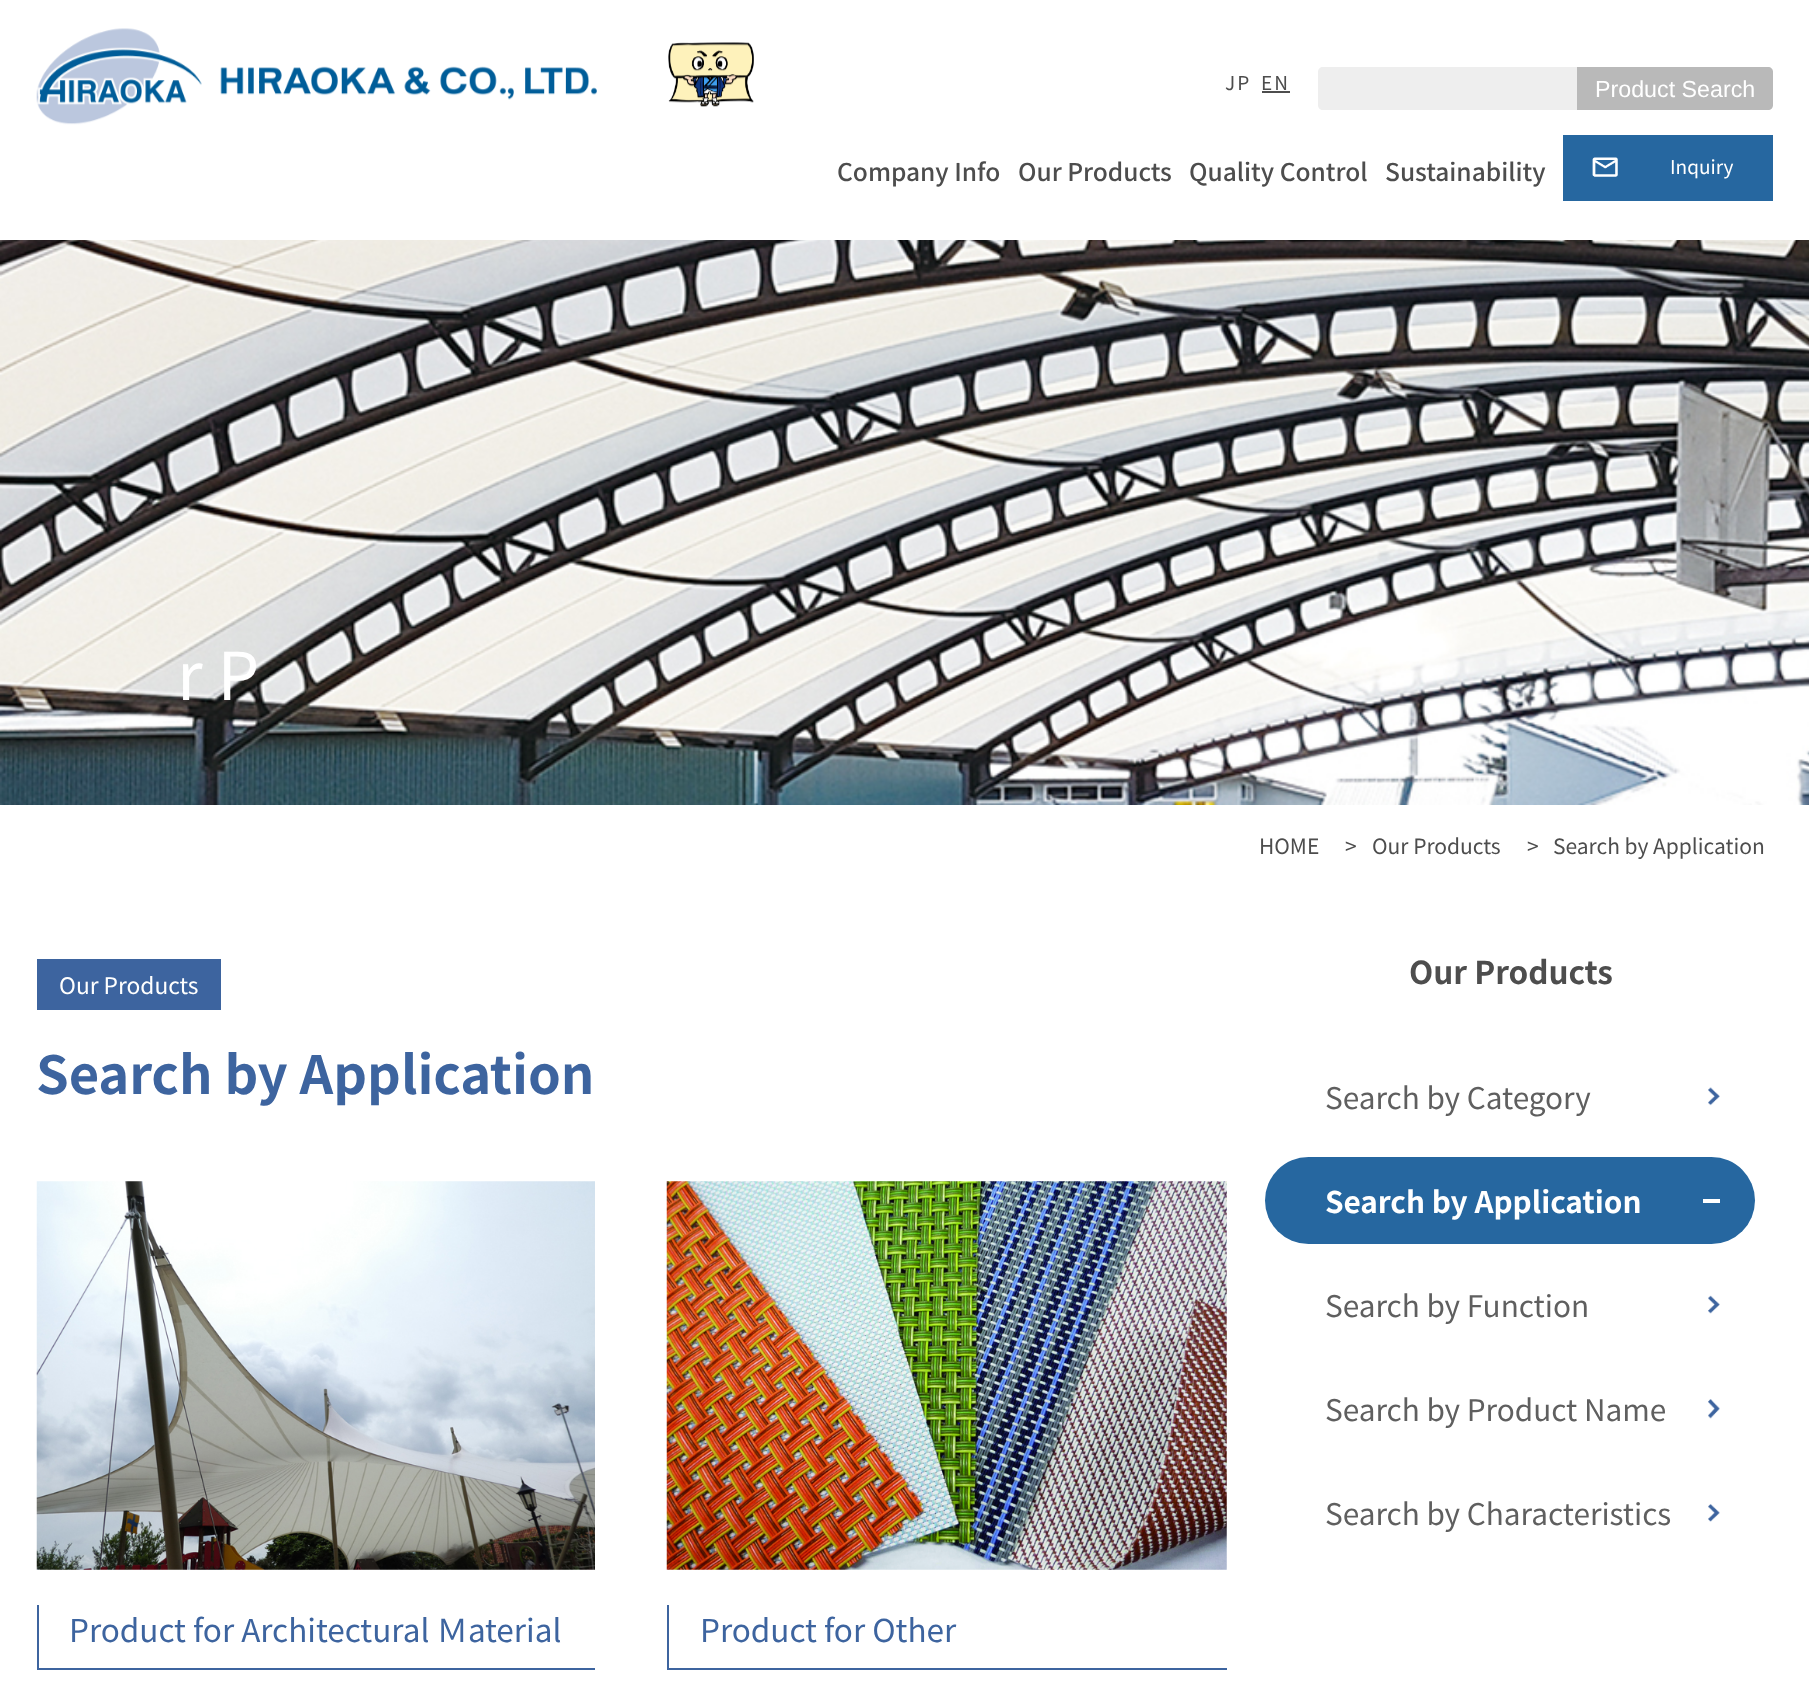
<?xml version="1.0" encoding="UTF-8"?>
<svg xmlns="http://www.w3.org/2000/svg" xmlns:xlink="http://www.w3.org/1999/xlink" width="1809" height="1689">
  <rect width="100%" height="100%" fill="#ffffff" />
  <image x="36" y="28" width="561" height="97" xlink:href="image1.png" />
  <image x="668" y="42" width="86" height="65" xlink:href="image2.png" />
  <rect x="1262" y="91" width="28" height="2" fill="#4d4d4d" />
  <path d="M 1323 67 h 254 v 43 h -254 c -3 0 -5 -2 -5 -5 v -33 c 0 -3 2 -5 5 -5 z" fill="#eeeeee" />
  <path d="M 1577 67 h 191 c 3 0 5 2 5 5 v 33 c 0 3 -2 5 -5 5 h -191 z" fill="#b9b9b9" />
  <rect x="1563" y="135" width="210" height="66" fill="#2667a0" />
  <image x="1592" y="157" width="26" height="20" xlink:href="image3.png" />
  <image x="0" y="240" width="1809" height="565" xlink:href="image4.png" />
  <rect x="37" y="959" width="184" height="51" fill="#3d649f" />
  <image x="36" y="1181" width="559" height="389" xlink:href="image5.png" />
  <rect x="37" y="1668" width="558" height="2" fill="#3d649f" />
  <rect x="37" y="1605" width="2" height="65" fill="#3d649f" />
  <image x="666" y="1181" width="561" height="389" xlink:href="image6.png" />
  <rect x="667" y="1668" width="560" height="2" fill="#3d649f" />
  <rect x="667" y="1605" width="2" height="65" fill="#3d649f" />
  <image x="1708" y="1087" width="12" height="19" xlink:href="image7.png" />
  <rect x="1265" y="1157" width="490" height="87" rx="43.5" fill="#2667a0" />
  <rect x="1703" y="1199" width="17" height="4" fill="#ffffff" />
  <image x="1708" y="1295" width="12" height="19" xlink:href="image8.png" />
  <image x="1708" y="1399" width="12" height="20" xlink:href="image9.png" />
  <image x="1708" y="1504" width="12" height="18" xlink:href="image10.png" />
  <text x="1225" y="90" style="font-family: Noto Sans JP; font-size: 19px; letter-spacing: 2px; fill: #4d4d4d">JP</text>
  <text x="1261" y="90" style="font-family: Noto Sans JP; font-size: 19px; letter-spacing: 2px; fill: #4d4d4d">EN</text>
  <text x="1595" y="97" style="font-family: Liberation Sans; font-size: 23.25px; fill: #ffffff">Product Search</text>
  <text x="837" y="181" style="font-family: Noto Sans JP; font-size: 24.5px; font-weight: 500; fill: #4d4d4d">Company Info</text>
  <text x="1018" y="181" style="font-family: Noto Sans JP; font-size: 24.5px; font-weight: 500; fill: #4d4d4d">Our Products</text>
  <text x="1189" y="181" style="font-family: Noto Sans JP; font-size: 24.5px; font-weight: 500; fill: #4d4d4d">Quality Control</text>
  <text x="1385" y="181" style="font-family: Noto Sans JP; font-size: 24.5px; font-weight: 500; fill: #4d4d4d">Sustainability</text>
  <text x="1670" y="174" style="font-family: Noto Sans JP; font-size: 19px; fill: #ffffff">Inquiry</text>
  <text x="177" y="700" style="font-family: Noto Sans JP; font-size: 66px; fill: #ffffff">r P</text>
  <text x="1259" y="854" style="font-family: Noto Sans JP; font-size: 21px; fill: #4d4d4d">HOME</text>
  <text x="1345" y="854" style="font-family: Noto Sans JP; font-size: 21px; fill: #4d4d4d">&gt;</text>
  <text x="1372" y="854" style="font-family: Noto Sans JP; font-size: 21px; fill: #4d4d4d">Our Products</text>
  <text x="1527" y="854" style="font-family: Noto Sans JP; font-size: 21px; fill: #4d4d4d">&gt;</text>
  <text x="1553" y="854" style="font-family: Noto Sans JP; font-size: 21px; fill: #4d4d4d">Search by Application</text>
  <text x="59" y="994" style="font-family: Noto Sans JP; font-size: 22.75px; fill: #ffffff">Our Products</text>
  <text x="36" y="1094" style="font-family: Noto Sans JP; font-size: 52.5px; font-weight: bold; fill: #3d649f">Search by Application</text>
  <text x="69" y="1642" style="font-family: Noto Sans JP; font-size: 31.5px; fill: #3d649f">Product for Architectural Ｍaterial</text>
  <text x="700" y="1642" style="font-family: Noto Sans JP; font-size: 31.5px; fill: #3d649f">Product for Other</text>
  <text x="1409" y="984" style="font-family: Noto Sans JP; font-size: 31.5px; font-weight: bold; fill: #4d4d4d">Our Products</text>
  <text x="1325" y="1109" style="font-family: Noto Sans JP; font-size: 29.75px; fill: #5f5f5f">Search by Category</text>
  <text x="1325" y="1213" style="font-family: Noto Sans JP; font-size: 29.75px; font-weight: bold; fill: #ffffff">Search by Application</text>
  <text x="1325" y="1317" style="font-family: Noto Sans JP; font-size: 29.75px; fill: #5f5f5f">Search by Function</text>
  <text x="1325" y="1421" style="font-family: Noto Sans JP; font-size: 29.75px; fill: #5f5f5f">Search by Product Name</text>
  <text x="1325" y="1525" style="font-family: Noto Sans JP; font-size: 29.75px; fill: #5f5f5f">Search by Characteristics</text>
</svg>
